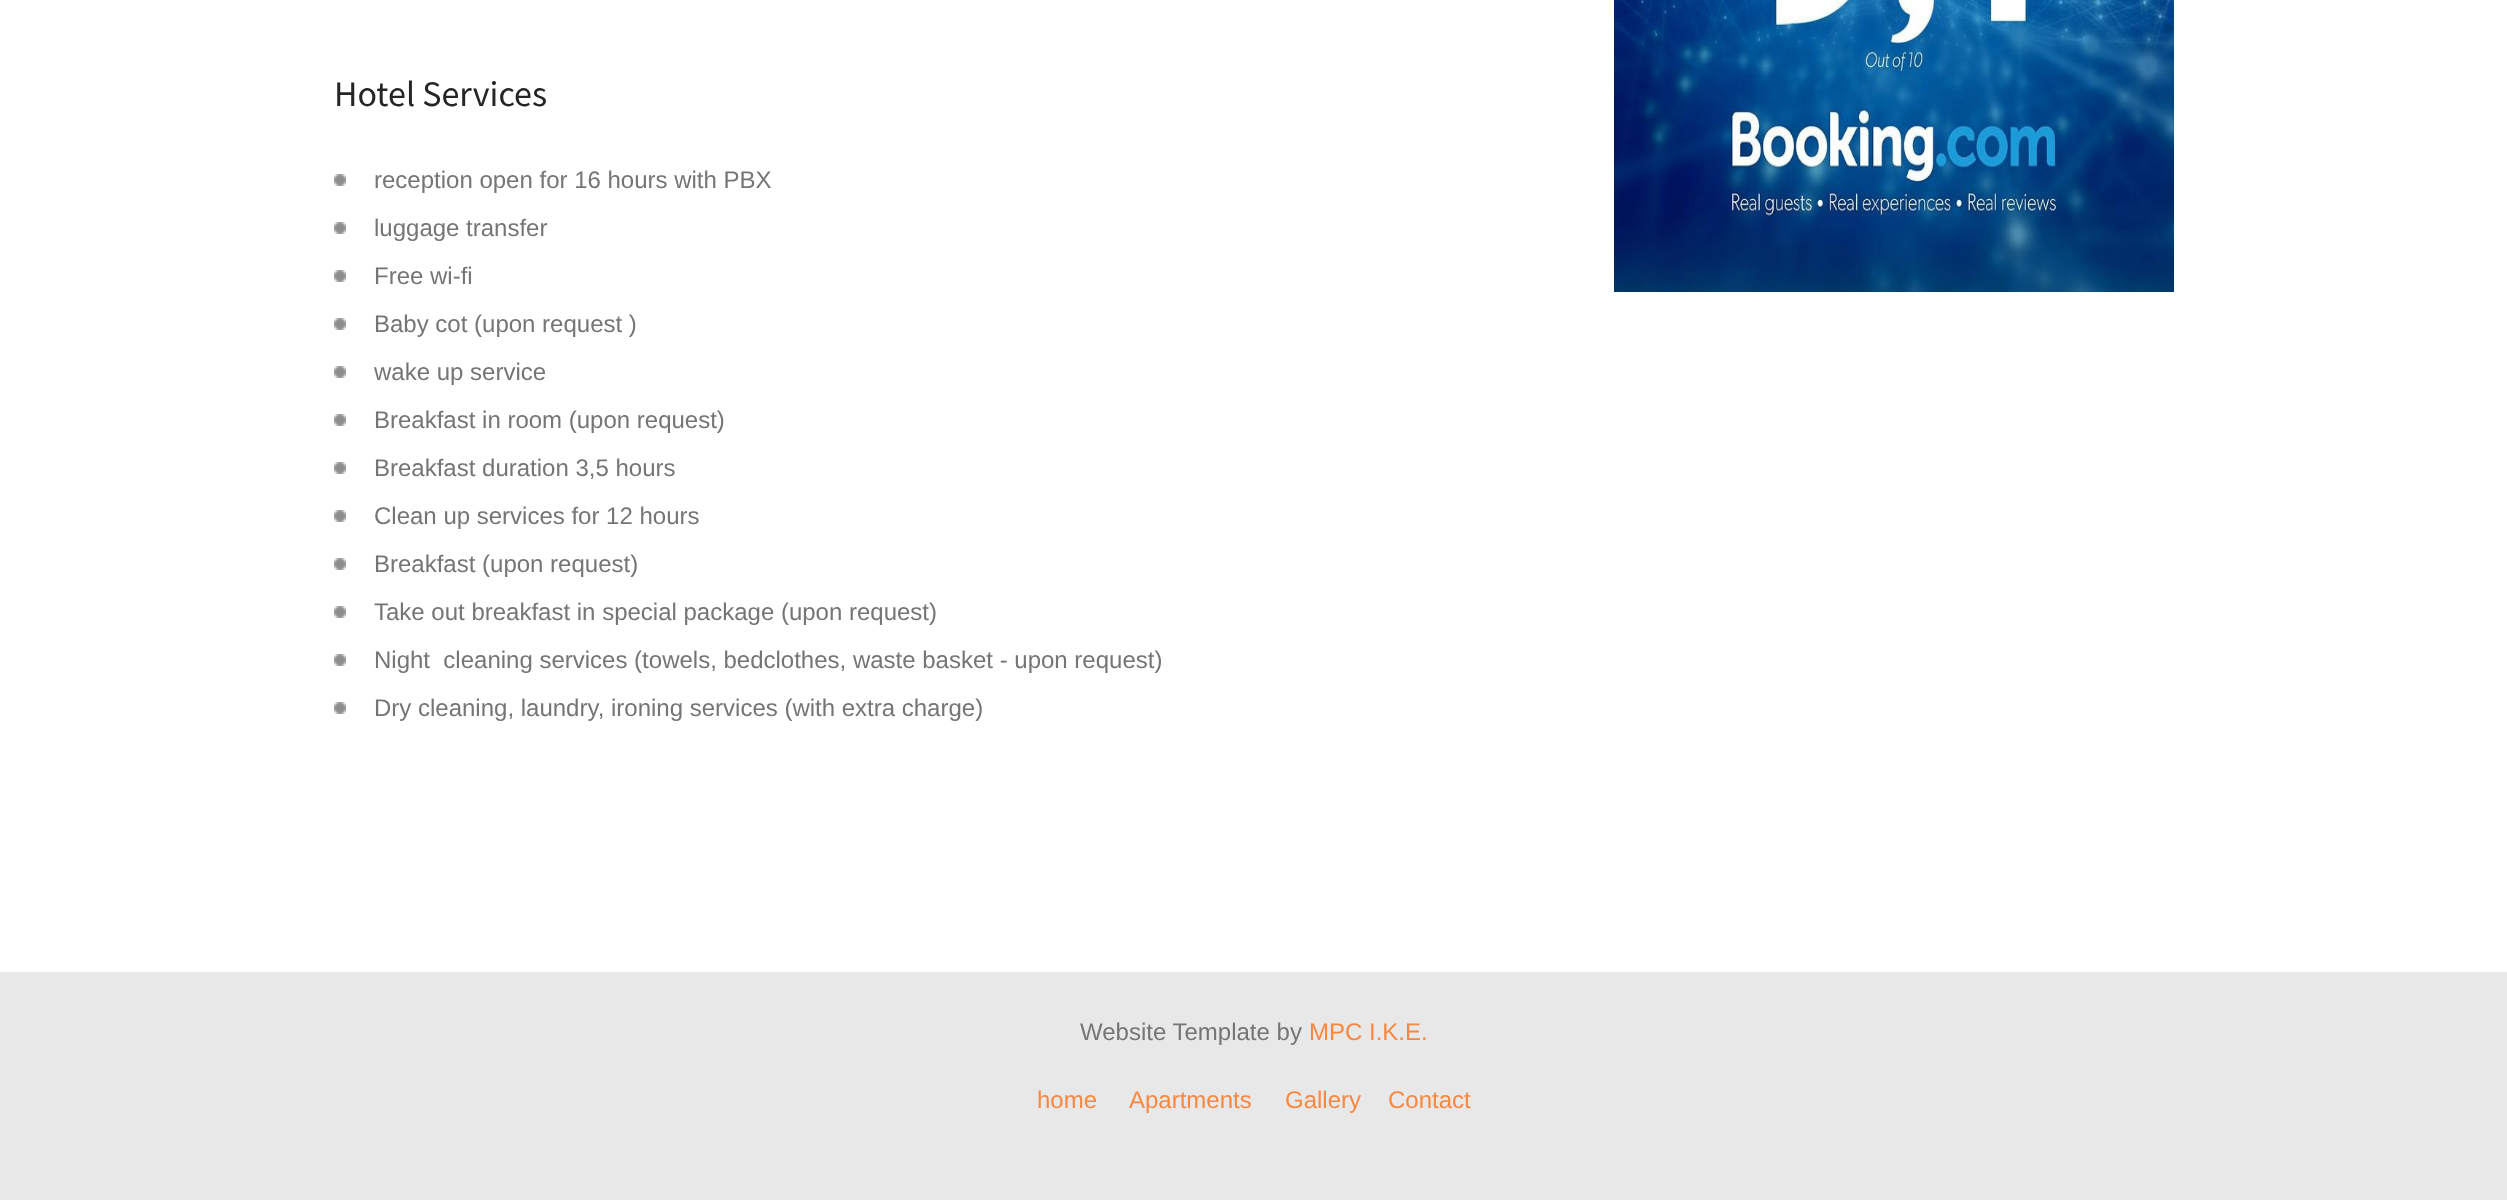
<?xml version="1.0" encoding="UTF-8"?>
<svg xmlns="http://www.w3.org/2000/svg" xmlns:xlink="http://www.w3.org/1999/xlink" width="2507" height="1200">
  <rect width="100%" height="100%" fill="#ffffff" />
  <image x="334" y="174" width="12" height="12" xlink:href="image1.png" />
  <image x="334" y="222" width="12" height="12" xlink:href="image1.png" />
  <image x="334" y="270" width="12" height="12" xlink:href="image1.png" />
  <image x="334" y="318" width="12" height="12" xlink:href="image1.png" />
  <image x="334" y="366" width="12" height="12" xlink:href="image1.png" />
  <image x="334" y="414" width="12" height="12" xlink:href="image1.png" />
  <image x="334" y="462" width="12" height="12" xlink:href="image1.png" />
  <image x="334" y="510" width="12" height="12" xlink:href="image1.png" />
  <image x="334" y="558" width="12" height="12" xlink:href="image1.png" />
  <image x="334" y="606" width="12" height="12" xlink:href="image1.png" />
  <image x="334" y="654" width="12" height="12" xlink:href="image1.png" />
  <image x="334" y="702" width="12" height="12" xlink:href="image1.png" />
  <image x="1614" y="0" width="560" height="292" xlink:href="image2.png" />
  <rect y="972" width="2507" height="228" fill="#e8e8e8" />
  <text x="334" y="106" style="font-family: Source Sans Pro; font-size: 36px; fill: #252525">Hotel Services</text>
  <text x="374" y="188" style="font-family: Liberation Sans; font-size: 24px; fill: #757575">reception open for 16 hours with PBX</text>
  <text x="374" y="236" style="font-family: Liberation Sans; font-size: 24px; fill: #757575">luggage transfer</text>
  <text x="374" y="284" style="font-family: Liberation Sans; font-size: 24px; fill: #757575">Free wi-fi</text>
  <text x="374" y="332" style="font-family: Liberation Sans; font-size: 24px; fill: #757575">Baby cot (upon request )</text>
  <text x="374" y="380" style="font-family: Liberation Sans; font-size: 24px; fill: #757575">wake up service</text>
  <text x="374" y="428" style="font-family: Liberation Sans; font-size: 24px; fill: #757575">Breakfast in room (upon request)</text>
  <text x="374" y="476" style="font-family: Liberation Sans; font-size: 24px; fill: #757575">Breakfast duration 3,5 hours</text>
  <text x="374" y="524" style="font-family: Liberation Sans; font-size: 24px; fill: #757575">Clean up services for 12 hours</text>
  <text x="374" y="572" style="font-family: Liberation Sans; font-size: 24px; fill: #757575">Breakfast (upon request)</text>
  <text x="374" y="620" style="font-family: Liberation Sans; font-size: 24px; fill: #757575">Take out breakfast in special package (upon request)</text>
  <text x="374" y="668" style="font-family: Liberation Sans; font-size: 24px; fill: #757575" xml:space="preserve">Night  cleaning services (towels, bedclothes, waste basket - upon request)</text>
  <text x="374" y="716" style="font-family: Liberation Sans; font-size: 24px; fill: #757575">Dry cleaning, laundry, ironing services (with extra charge)</text>
  <text x="1080" y="1040" style="font-family: Liberation Sans; font-size: 24px; fill: #757575">Website Template by</text>
  <text x="1309" y="1040" style="font-family: Liberation Sans; font-size: 24px; fill: #f98740">MPC I.K.E.</text>
  <text x="1037" y="1108" style="font-family: Liberation Sans; font-size: 24px; fill: #f98740">home</text>
  <text x="1129" y="1108" style="font-family: Liberation Sans; font-size: 24px; fill: #f98740">Apartments</text>
  <text x="1285" y="1108" style="font-family: Liberation Sans; font-size: 24px; fill: #f98740">Gallery</text>
  <text x="1388" y="1108" style="font-family: Liberation Sans; font-size: 24px; fill: #f98740">Contact</text>
</svg>
